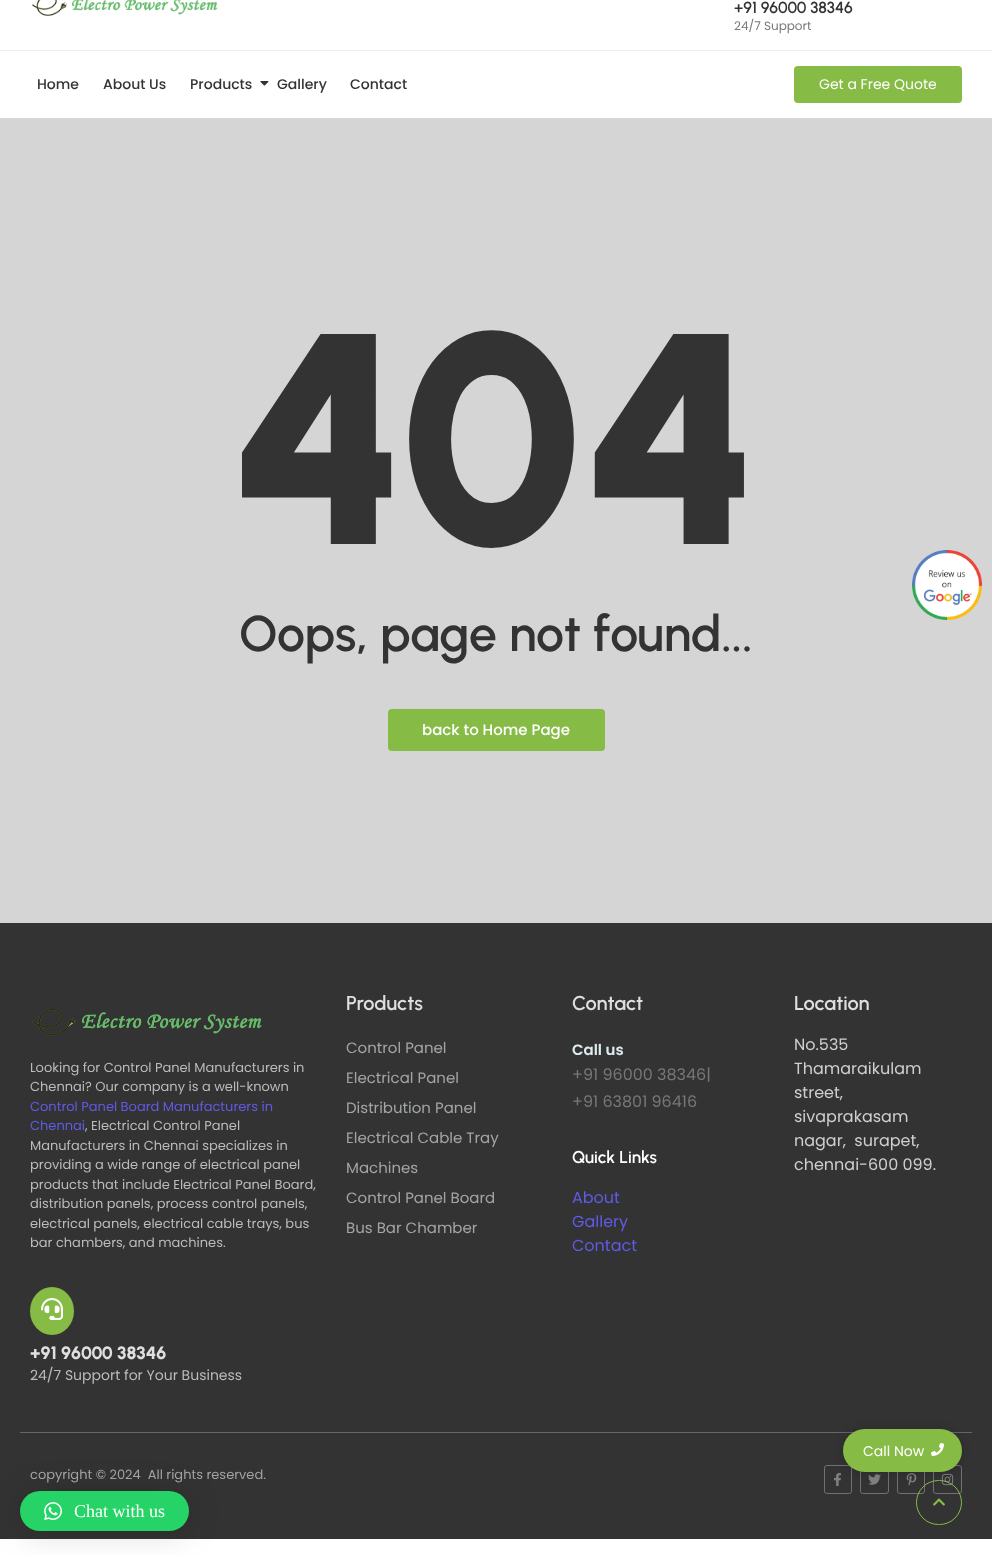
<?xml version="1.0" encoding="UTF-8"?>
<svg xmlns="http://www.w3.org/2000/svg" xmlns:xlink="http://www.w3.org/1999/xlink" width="992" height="1555">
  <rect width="100%" height="100%" fill="#ffffff" />
  <image x="31" y="0" width="187" height="17" xlink:href="image1.png" />
  <rect y="50" width="992" height="1" fill="#eeeeee" />
  <image x="260" y="81" width="9" height="5" xlink:href="image2.png" />
  <rect x="794" y="66" width="168" height="37" rx="4" fill="#86bb46" />
  <rect y="118" width="992" height="805" fill="#d5d5d5" />
  <rect x="388" y="709" width="217" height="42" rx="4" fill="#86bb46" />
  <rect y="923" width="992" height="616" fill="#333333" />
  <image x="32" y="1009" width="230" height="27" xlink:href="image3.png" />
  <ellipse cx="52" cy="1311" rx="22" ry="24" fill="#86bb46" />
  <image x="41" y="1298" width="22" height="22" xlink:href="image4.png" />
  <rect x="20" y="1432" width="952" height="1" fill="#666666" />
  <rect x="824.5" y="1465.5" width="27" height="28" rx="2.5" fill="none" stroke="#717171" />
  <image x="834" y="1473" width="7" height="13" xlink:href="image5.png" />
  <rect x="860.5" y="1465.5" width="28" height="28" rx="2.5" fill="none" stroke="#717171" />
  <image x="868" y="1474" width="13" height="11" xlink:href="image6.png" />
  <rect x="897.5" y="1465.5" width="27" height="28" rx="2.5" fill="none" stroke="#717171" />
  <image x="906" y="1473" width="11" height="13" xlink:href="image7.png" />
  <rect x="933.5" y="1465.5" width="28" height="28" rx="2.5" fill="none" stroke="#717171" />
  <image x="941" y="1473" width="13" height="13" xlink:href="image8.png" />
  <image x="912" y="550" width="70" height="70" xlink:href="image9.png" />
  <rect x="916.5" y="1480.5" width="45" height="44" rx="22" fill="none" stroke="#86bb46" />
  <rect x="843" y="1429" width="119" height="43" rx="21.5" fill="#000000" fill-opacity="0.2" filter="blur(5px)" />
  <rect x="843" y="1429" width="119" height="43" rx="21.5" fill="#86bb46" />
  <image x="931" y="1443" width="13" height="13" xlink:href="image10.png" />
  <image x="933" y="1498" width="12" height="8" xlink:href="image11.png" />
  <rect x="20" y="1493" width="169" height="40" rx="20" fill="#000000" fill-opacity="0.16" filter="blur(16px)" />
  <rect x="20" y="1491" width="169" height="40" rx="20" fill="#25d366" />
  <image x="44" y="1502" width="18" height="19" xlink:href="image12.png" />
  <text x="734" y="13" style="font-family: Urbanist; font-size: 16px; font-weight: 600; fill: #333333">+91 96000 38346</text>
  <text x="734" y="30" style="font-family: Poppins; font-size: 12px; fill: #777777">24/7 Support</text>
  <text x="37" y="89" style="font-family: Poppins; font-size: 14px; font-weight: 500; fill: #333333">Home</text>
  <text x="103" y="89" style="font-family: Poppins; font-size: 14px; font-weight: 500; fill: #333333">About Us</text>
  <text x="190" y="89" style="font-family: Poppins; font-size: 14px; font-weight: 500; fill: #333333">Products</text>
  <text x="277" y="89" style="font-family: Poppins; font-size: 14px; font-weight: 500; fill: #333333">Gallery</text>
  <text x="350" y="89" style="font-family: Poppins; font-size: 14px; font-weight: 500; fill: #333333">Contact</text>
  <text x="819" y="89" style="font-family: Poppins; font-size: 14px; fill: #ffffff">Get a Free Quote</text>
  <text x="230" y="544" style="font-family: Urbanist; font-size: 300px; font-weight: 900; fill: #333333">404</text>
  <text x="239" y="651" style="font-family: Urbanist; font-size: 50px; font-weight: 600; fill: #333333">Oops, page not found...</text>
  <text x="422" y="735" style="font-family: Poppins; font-size: 15px; font-weight: 500; fill: #ffffff">back to Home Page</text>
  <text x="30" y="1072" style="font-family: Poppins; font-size: 13px; fill: #bbbbbb">Looking for Control Panel Manufacturers in</text>
  <text x="30" y="1091" style="font-family: Poppins; font-size: 13px; fill: #bbbbbb">Chennai? Our company is a well-known</text>
  <text x="30" y="1111" style="font-family: Poppins; font-size: 13px; fill: #605be5">Control Panel Board Manufacturers in</text>
  <text x="30" y="1130" style="font-family: Poppins; font-size: 13px; fill: #605be5">Chennai</text>
  <text x="85" y="1130" style="font-family: Poppins; font-size: 13px; fill: #bbbbbb">, Electrical Control Panel</text>
  <text x="30" y="1150" style="font-family: Poppins; font-size: 13px; fill: #bbbbbb">Manufacturers in Chennai specializes in</text>
  <text x="30" y="1169" style="font-family: Poppins; font-size: 13px; fill: #bbbbbb">providing a wide range of electrical panel</text>
  <text x="30" y="1189" style="font-family: Poppins; font-size: 13px; fill: #bbbbbb">products that include Electrical Panel Board,</text>
  <text x="30" y="1208" style="font-family: Poppins; font-size: 13px; fill: #bbbbbb">distribution panels, process control panels,</text>
  <text x="30" y="1228" style="font-family: Poppins; font-size: 13px; fill: #bbbbbb">electrical panels, electrical cable trays, bus</text>
  <text x="30" y="1247" style="font-family: Poppins; font-size: 13px; fill: #bbbbbb">bar chambers, and machines.</text>
  <text x="30" y="1359" style="font-family: Urbanist; font-size: 18px; font-weight: 800; fill: #dfdfdf">+91 96000 38346</text>
  <text x="30" y="1380" style="font-family: Poppins; font-size: 14px; fill: #bbbbbb">24/7 Support for Your Business</text>
  <text x="346" y="1010" style="font-family: Urbanist; font-size: 20px; font-weight: 600; fill: #dfdfdf">Products</text>
  <text x="346" y="1053" style="font-family: Poppins; font-size: 15px; fill: #a2a5a8">Control Panel</text>
  <text x="346" y="1083" style="font-family: Poppins; font-size: 15px; fill: #a2a5a8">Electrical Panel</text>
  <text x="346" y="1113" style="font-family: Poppins; font-size: 15px; fill: #a2a5a8">Distribution Panel</text>
  <text x="346" y="1143" style="font-family: Poppins; font-size: 15px; fill: #a2a5a8">Electrical Cable Tray</text>
  <text x="346" y="1173" style="font-family: Poppins; font-size: 15px; fill: #a2a5a8">Machines</text>
  <text x="346" y="1203" style="font-family: Poppins; font-size: 15px; fill: #a2a5a8">Control Panel Board</text>
  <text x="346" y="1233" style="font-family: Poppins; font-size: 15px; fill: #a2a5a8">Bus Bar Chamber</text>
  <text x="572" y="1010" style="font-family: Urbanist; font-size: 20px; font-weight: 600; fill: #dfdfdf">Contact</text>
  <text x="572" y="1055" style="font-family: Poppins; font-size: 15px; font-weight: 600; fill: #deecf1">Call us</text>
  <text x="572" y="1080" style="font-family: Poppins; font-size: 16px; fill: #777777">+91 96000 38346|</text>
  <text x="572" y="1107" style="font-family: Poppins; font-size: 16px; fill: #777777">+91 63801 96416</text>
  <text x="572" y="1163" style="font-family: Urbanist; font-size: 17px; font-weight: 600; fill: #ffffff">Quick Links</text>
  <text x="572" y="1203" style="font-family: Poppins; font-size: 16px; fill: #605be5">About</text>
  <text x="572" y="1227" style="font-family: Poppins; font-size: 16px; fill: #605be5">Gallery</text>
  <text x="572" y="1251" style="font-family: Poppins; font-size: 16px; fill: #605be5">Contact</text>
  <text x="794" y="1010" style="font-family: Urbanist; font-size: 20px; font-weight: 600; fill: #dfdfdf">Location</text>
  <text x="794" y="1050" style="font-family: Poppins; font-size: 16px; fill: #cfcfcf">No.535</text>
  <text x="794" y="1074" style="font-family: Poppins; font-size: 16px; fill: #cfcfcf">Thamaraikulam</text>
  <text x="794" y="1098" style="font-family: Poppins; font-size: 16px; fill: #cfcfcf">street,</text>
  <text x="794" y="1122" style="font-family: Poppins; font-size: 16px; fill: #cfcfcf">sivaprakasam</text>
  <text x="794" y="1146" style="font-family: Poppins; font-size: 16px; fill: #cfcfcf" xml:space="preserve">nagar,  surapet,</text>
  <text x="794" y="1170" style="font-family: Poppins; font-size: 16px; fill: #cfcfcf">chennai-600 099.</text>
  <text x="30" y="1479" style="font-family: Poppins; font-size: 13px; fill: #a2a2a2" xml:space="preserve">copyright © 2024  All rights reserved.</text>
  <text x="863" y="1456" style="font-family: Poppins; font-size: 14px; fill: #ffffff">Call Now</text>
  <text x="74" y="1517" style="font-family: Liberation Serif; font-size: 18px; fill: #ffffff">Chat with us</text>
</svg>
